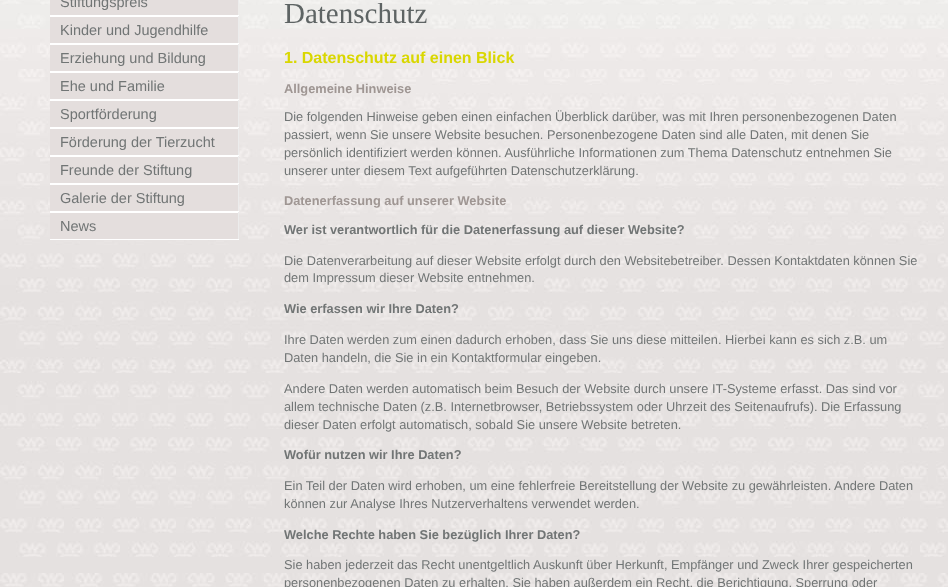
<?xml version="1.0" encoding="UTF-8"?>
<svg xmlns="http://www.w3.org/2000/svg" xmlns:xlink="http://www.w3.org/1999/xlink" width="948" height="587">
  <rect width="100%" height="100%" fill="#ffffff" />
  <image x="0" y="0" width="948" height="587" xlink:href="image1.png" />
  <rect x="50" width="188" height="15" fill="#e4dedd" />
  <rect x="238" width="1" height="5" fill="#ececec" />
  <rect x="50" y="15" width="189" height="2" fill="#ffffff" />
  <rect x="50" y="17" width="188" height="26" fill="#e4dedd" />
  <rect x="238" y="16" width="1" height="28" fill="#ececec" />
  <rect x="50" y="43" width="189" height="2" fill="#ffffff" />
  <rect x="50" y="45" width="188" height="26" fill="#e4dedd" />
  <rect x="238" y="44" width="1" height="28" fill="#ececec" />
  <rect x="50" y="71" width="189" height="2" fill="#ffffff" />
  <rect x="50" y="73" width="188" height="26" fill="#e4dedd" />
  <rect x="238" y="72" width="1" height="28" fill="#ececec" />
  <rect x="50" y="99" width="189" height="2" fill="#ffffff" />
  <rect x="50" y="101" width="188" height="26" fill="#e4dedd" />
  <rect x="238" y="100" width="1" height="28" fill="#ececec" />
  <rect x="50" y="127" width="189" height="2" fill="#ffffff" />
  <rect x="50" y="129" width="188" height="26" fill="#e4dedd" />
  <rect x="238" y="128" width="1" height="28" fill="#ececec" />
  <rect x="50" y="155" width="189" height="2" fill="#ffffff" />
  <rect x="50" y="157" width="188" height="26" fill="#e4dedd" />
  <rect x="238" y="156" width="1" height="28" fill="#ececec" />
  <rect x="50" y="183" width="189" height="2" fill="#ffffff" />
  <rect x="50" y="185" width="188" height="26" fill="#e4dedd" />
  <rect x="238" y="184" width="1" height="28" fill="#ececec" />
  <rect x="50" y="211" width="189" height="2" fill="#ffffff" />
  <rect x="50" y="213" width="188" height="26" fill="#e4dedd" />
  <rect x="238" y="212" width="1" height="28" fill="#ececec" />
  <rect x="50" y="239" width="189" height="1" fill="#ffffff" />
  <text x="60" y="7" style="font-family: Liberation Sans; font-size: 14.5px; fill: #717575">Stiftungspreis</text>
  <text x="60" y="35" style="font-family: Liberation Sans; font-size: 14.5px; fill: #717575">Kinder und Jugendhilfe</text>
  <text x="60" y="63" style="font-family: Liberation Sans; font-size: 14.5px; fill: #717575">Erziehung und Bildung</text>
  <text x="60" y="91" style="font-family: Liberation Sans; font-size: 14.5px; fill: #717575">Ehe und Familie</text>
  <text x="60" y="119" style="font-family: Liberation Sans; font-size: 14.5px; fill: #717575">Sportförderung</text>
  <text x="60" y="147" style="font-family: Liberation Sans; font-size: 14.5px; fill: #717575">Förderung der Tierzucht</text>
  <text x="60" y="175" style="font-family: Liberation Sans; font-size: 14.5px; fill: #717575">Freunde der Stiftung</text>
  <text x="60" y="203" style="font-family: Liberation Sans; font-size: 14.5px; fill: #717575">Galerie der Stiftung</text>
  <text x="60" y="231" style="font-family: Liberation Sans; font-size: 14.5px; fill: #717575">News</text>
  <text x="284" y="23" style="font-family: Liberation Serif; font-size: 29px; fill: #5e6464">Datenschutz</text>
  <text x="284" y="63" style="font-family: Liberation Sans; font-size: 16px; font-weight: bold; fill: #d9d700">1. Datenschutz auf einen Blick</text>
  <text x="284" y="93" style="font-family: Liberation Sans; font-size: 12.8px; font-weight: bold; fill: #9f9693">Allgemeine Hinweise</text>
  <text x="284" y="121" style="font-family: Liberation Sans; font-size: 12.8px; fill: #717575">Die folgenden Hinweise geben einen einfachen Überblick darüber, was mit Ihren personenbezogenen Daten</text>
  <text x="284" y="139" style="font-family: Liberation Sans; font-size: 12.8px; fill: #717575">passiert, wenn Sie unsere Website besuchen. Personenbezogene Daten sind alle Daten, mit denen Sie</text>
  <text x="284" y="157" style="font-family: Liberation Sans; font-size: 12.8px; fill: #717575">persönlich identifiziert werden können. Ausführliche Informationen zum Thema Datenschutz entnehmen Sie</text>
  <text x="284" y="175" style="font-family: Liberation Sans; font-size: 12.8px; fill: #717575">unserer unter diesem Text aufgeführten Datenschutzerklärung.</text>
  <text x="284" y="205" style="font-family: Liberation Sans; font-size: 12.8px; font-weight: bold; fill: #9f9693">Datenerfassung auf unserer Website</text>
  <text x="284" y="234" style="font-family: Liberation Sans; font-size: 12.8px; font-weight: bold; fill: #717575">Wer ist verantwortlich für die Datenerfassung auf dieser Website?</text>
  <text x="284" y="265" style="font-family: Liberation Sans; font-size: 12.8px; fill: #717575">Die Datenverarbeitung auf dieser Website erfolgt durch den Websitebetreiber. Dessen Kontaktdaten können Sie</text>
  <text x="284" y="282" style="font-family: Liberation Sans; font-size: 12.8px; fill: #717575">dem Impressum dieser Website entnehmen.</text>
  <text x="284" y="313" style="font-family: Liberation Sans; font-size: 12.8px; font-weight: bold; fill: #717575">Wie erfassen wir Ihre Daten?</text>
  <text x="284" y="344" style="font-family: Liberation Sans; font-size: 12.8px; fill: #717575">Ihre Daten werden zum einen dadurch erhoben, dass Sie uns diese mitteilen. Hierbei kann es sich z.B. um</text>
  <text x="284" y="362" style="font-family: Liberation Sans; font-size: 12.8px; fill: #717575">Daten handeln, die Sie in ein Kontaktformular eingeben.</text>
  <text x="284" y="393" style="font-family: Liberation Sans; font-size: 12.8px; fill: #717575">Andere Daten werden automatisch beim Besuch der Website durch unsere IT-Systeme erfasst. Das sind vor</text>
  <text x="284" y="411" style="font-family: Liberation Sans; font-size: 12.8px; fill: #717575">allem technische Daten (z.B. Internetbrowser, Betriebssystem oder Uhrzeit des Seitenaufrufs). Die Erfassung</text>
  <text x="284" y="429" style="font-family: Liberation Sans; font-size: 12.8px; fill: #717575">dieser Daten erfolgt automatisch, sobald Sie unsere Website betreten.</text>
  <text x="284" y="459" style="font-family: Liberation Sans; font-size: 12.8px; font-weight: bold; fill: #717575">Wofür nutzen wir Ihre Daten?</text>
  <text x="284" y="490" style="font-family: Liberation Sans; font-size: 12.8px; fill: #717575">Ein Teil der Daten wird erhoben, um eine fehlerfreie Bereitstellung der Website zu gewährleisten. Andere Daten</text>
  <text x="284" y="508" style="font-family: Liberation Sans; font-size: 12.8px; fill: #717575">können zur Analyse Ihres Nutzerverhaltens verwendet werden.</text>
  <text x="284" y="539" style="font-family: Liberation Sans; font-size: 12.8px; font-weight: bold; fill: #717575">Welche Rechte haben Sie bezüglich Ihrer Daten?</text>
  <text x="284" y="569" style="font-family: Liberation Sans; font-size: 12.8px; fill: #717575">Sie haben jederzeit das Recht unentgeltlich Auskunft über Herkunft, Empfänger und Zweck Ihrer gespeicherten</text>
  <text x="284" y="587" style="font-family: Liberation Sans; font-size: 12.8px; fill: #717575">personenbezogenen Daten zu erhalten. Sie haben außerdem ein Recht, die Berichtigung, Sperrung oder</text>
</svg>
